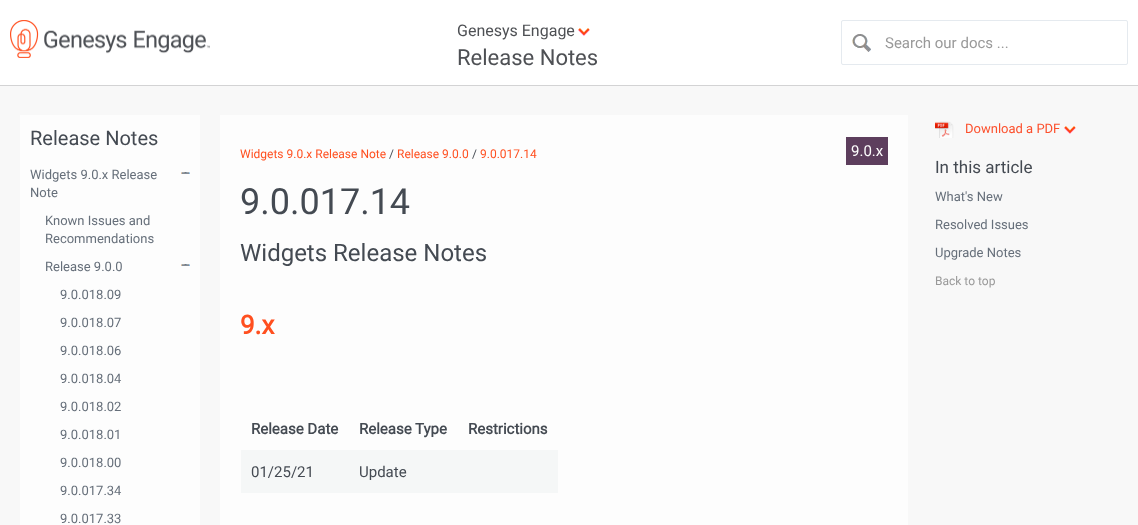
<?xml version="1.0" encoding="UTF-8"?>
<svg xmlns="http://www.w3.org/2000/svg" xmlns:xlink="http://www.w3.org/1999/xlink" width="1138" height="525">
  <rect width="100%" height="100%" fill="#f8f8f8" />
  <rect width="1138" height="85" fill="#ffffff" />
  <rect y="85" width="1138" height="1" fill="#d3d3d4" />
  <image x="10" y="20" width="200" height="38" xlink:href="image1.png" />
  <image x="578" y="28" width="12" height="8" xlink:href="image2.png" />
  <image x="852" y="34" width="19" height="18" xlink:href="image3.png" />
  <rect x="841.5" y="20.5" width="286" height="44" rx="1.5" fill="none" stroke="#e5eaef" />
  <rect x="20" y="115" width="180" height="410" fill="#fdfdfd" />
  <image x="181" y="172" width="9" height="2" xlink:href="image4.png" />
  <image x="181" y="264" width="9" height="2" xlink:href="image4.png" />
  <rect x="220" y="115" width="688" height="410" fill="#fdfdfd" />
  <rect x="846" y="137" width="42" height="28" fill="#5d3e5d" />
  <rect x="241" y="450" width="317" height="43" fill="#f5f7f7" />
  <image x="935" y="121" width="19" height="17" xlink:href="image5.png" />
  <image x="1064" y="126" width="12" height="8" xlink:href="image6.png" />
  <text x="457" y="36" style="font-family: Roboto; font-size: 16px; fill: #4e5054">Genesys Engage</text>
  <text x="457" y="65" style="font-family: Roboto; font-size: 22px; fill: #4e5054">Release Notes</text>
  <text x="885" y="48" style="font-family: Roboto; font-size: 15px; fill: #999999">Search our docs ...</text>
  <text x="30" y="145" style="font-family: Roboto; font-size: 20px; fill: #444a52">Release Notes</text>
  <text x="30" y="179" style="font-family: Roboto; font-size: 13px; fill: #666f7a">Widgets 9.0.x Release</text>
  <text x="30" y="197" style="font-family: Roboto; font-size: 13px; fill: #666f7a">Note</text>
  <text x="45" y="225" style="font-family: Roboto; font-size: 13px; fill: #666f7a">Known Issues and</text>
  <text x="45" y="243" style="font-family: Roboto; font-size: 13px; fill: #666f7a">Recommendations</text>
  <text x="45" y="271" style="font-family: Roboto; font-size: 13px; fill: #666f7a">Release 9.0.0</text>
  <text x="60" y="299" style="font-family: Roboto; font-size: 13px; fill: #666f7a">9.0.018.09</text>
  <text x="60" y="327" style="font-family: Roboto; font-size: 13px; fill: #666f7a">9.0.018.07</text>
  <text x="60" y="355" style="font-family: Roboto; font-size: 13px; fill: #666f7a">9.0.018.06</text>
  <text x="60" y="383" style="font-family: Roboto; font-size: 13px; fill: #666f7a">9.0.018.04</text>
  <text x="60" y="411" style="font-family: Roboto; font-size: 13px; fill: #666f7a">9.0.018.02</text>
  <text x="60" y="439" style="font-family: Roboto; font-size: 13px; fill: #666f7a">9.0.018.01</text>
  <text x="60" y="467" style="font-family: Roboto; font-size: 13px; fill: #666f7a">9.0.018.00</text>
  <text x="60" y="495" style="font-family: Roboto; font-size: 13px; fill: #666f7a">9.0.017.34</text>
  <text x="60" y="523" style="font-family: Roboto; font-size: 13px; fill: #666f7a">9.0.017.33</text>
  <text x="240" y="158" style="font-family: Roboto; font-size: 12px; fill: #ff4f1f">Widgets 9.0.x Release Note</text>
  <text x="389" y="158" style="font-family: Roboto; font-size: 12px; fill: #444a52">/</text>
  <text x="397" y="158" style="font-family: Roboto; font-size: 12px; fill: #ff4f1f">Release 9.0.0</text>
  <text x="472" y="158" style="font-family: Roboto; font-size: 12px; fill: #444a52">/</text>
  <text x="480" y="158" style="font-family: Roboto; font-size: 12px; fill: #ff4f1f">9.0.017.14</text>
  <text x="851" y="156" style="font-family: Roboto; font-size: 15px; fill: #fdfdfd">9.0.x</text>
  <text x="240" y="214" style="font-family: Roboto; font-size: 36px; fill: #444a52">9.0.017.14</text>
  <text x="240" y="261" style="font-family: Roboto; font-size: 24px; fill: #444a52">Widgets Release Notes</text>
  <text x="240" y="334" style="font-family: Roboto; font-size: 26px; font-weight: bold; fill: #ff4f1f">9.x</text>
  <text x="251" y="434" style="font-family: Roboto; font-size: 15px; font-weight: bold; fill: #444a52">Release Date</text>
  <text x="359" y="434" style="font-family: Roboto; font-size: 15px; font-weight: bold; fill: #444a52">Release Type</text>
  <text x="468" y="434" style="font-family: Roboto; font-size: 15px; font-weight: bold; fill: #444a52">Restrictions</text>
  <text x="251" y="477" style="font-family: Roboto; font-size: 15px; fill: #444a52">01/25/21</text>
  <text x="359" y="477" style="font-family: Roboto; font-size: 15px; fill: #444a52">Update</text>
  <text x="965" y="133" style="font-family: Roboto; font-size: 13px; fill: #fc502d">Download a PDF</text>
  <text x="935" y="173" style="font-family: Roboto; font-size: 17px; fill: #444a52">In this article</text>
  <text x="935" y="201" style="font-family: Roboto; font-size: 13px; fill: #666f7a">What's New</text>
  <text x="935" y="229" style="font-family: Roboto; font-size: 13px; fill: #666f7a">Resolved Issues</text>
  <text x="935" y="257" style="font-family: Roboto; font-size: 13px; fill: #666f7a">Upgrade Notes</text>
  <text x="935" y="285" style="font-family: Roboto; font-size: 12px; fill: #999999">Back to top</text>
</svg>
